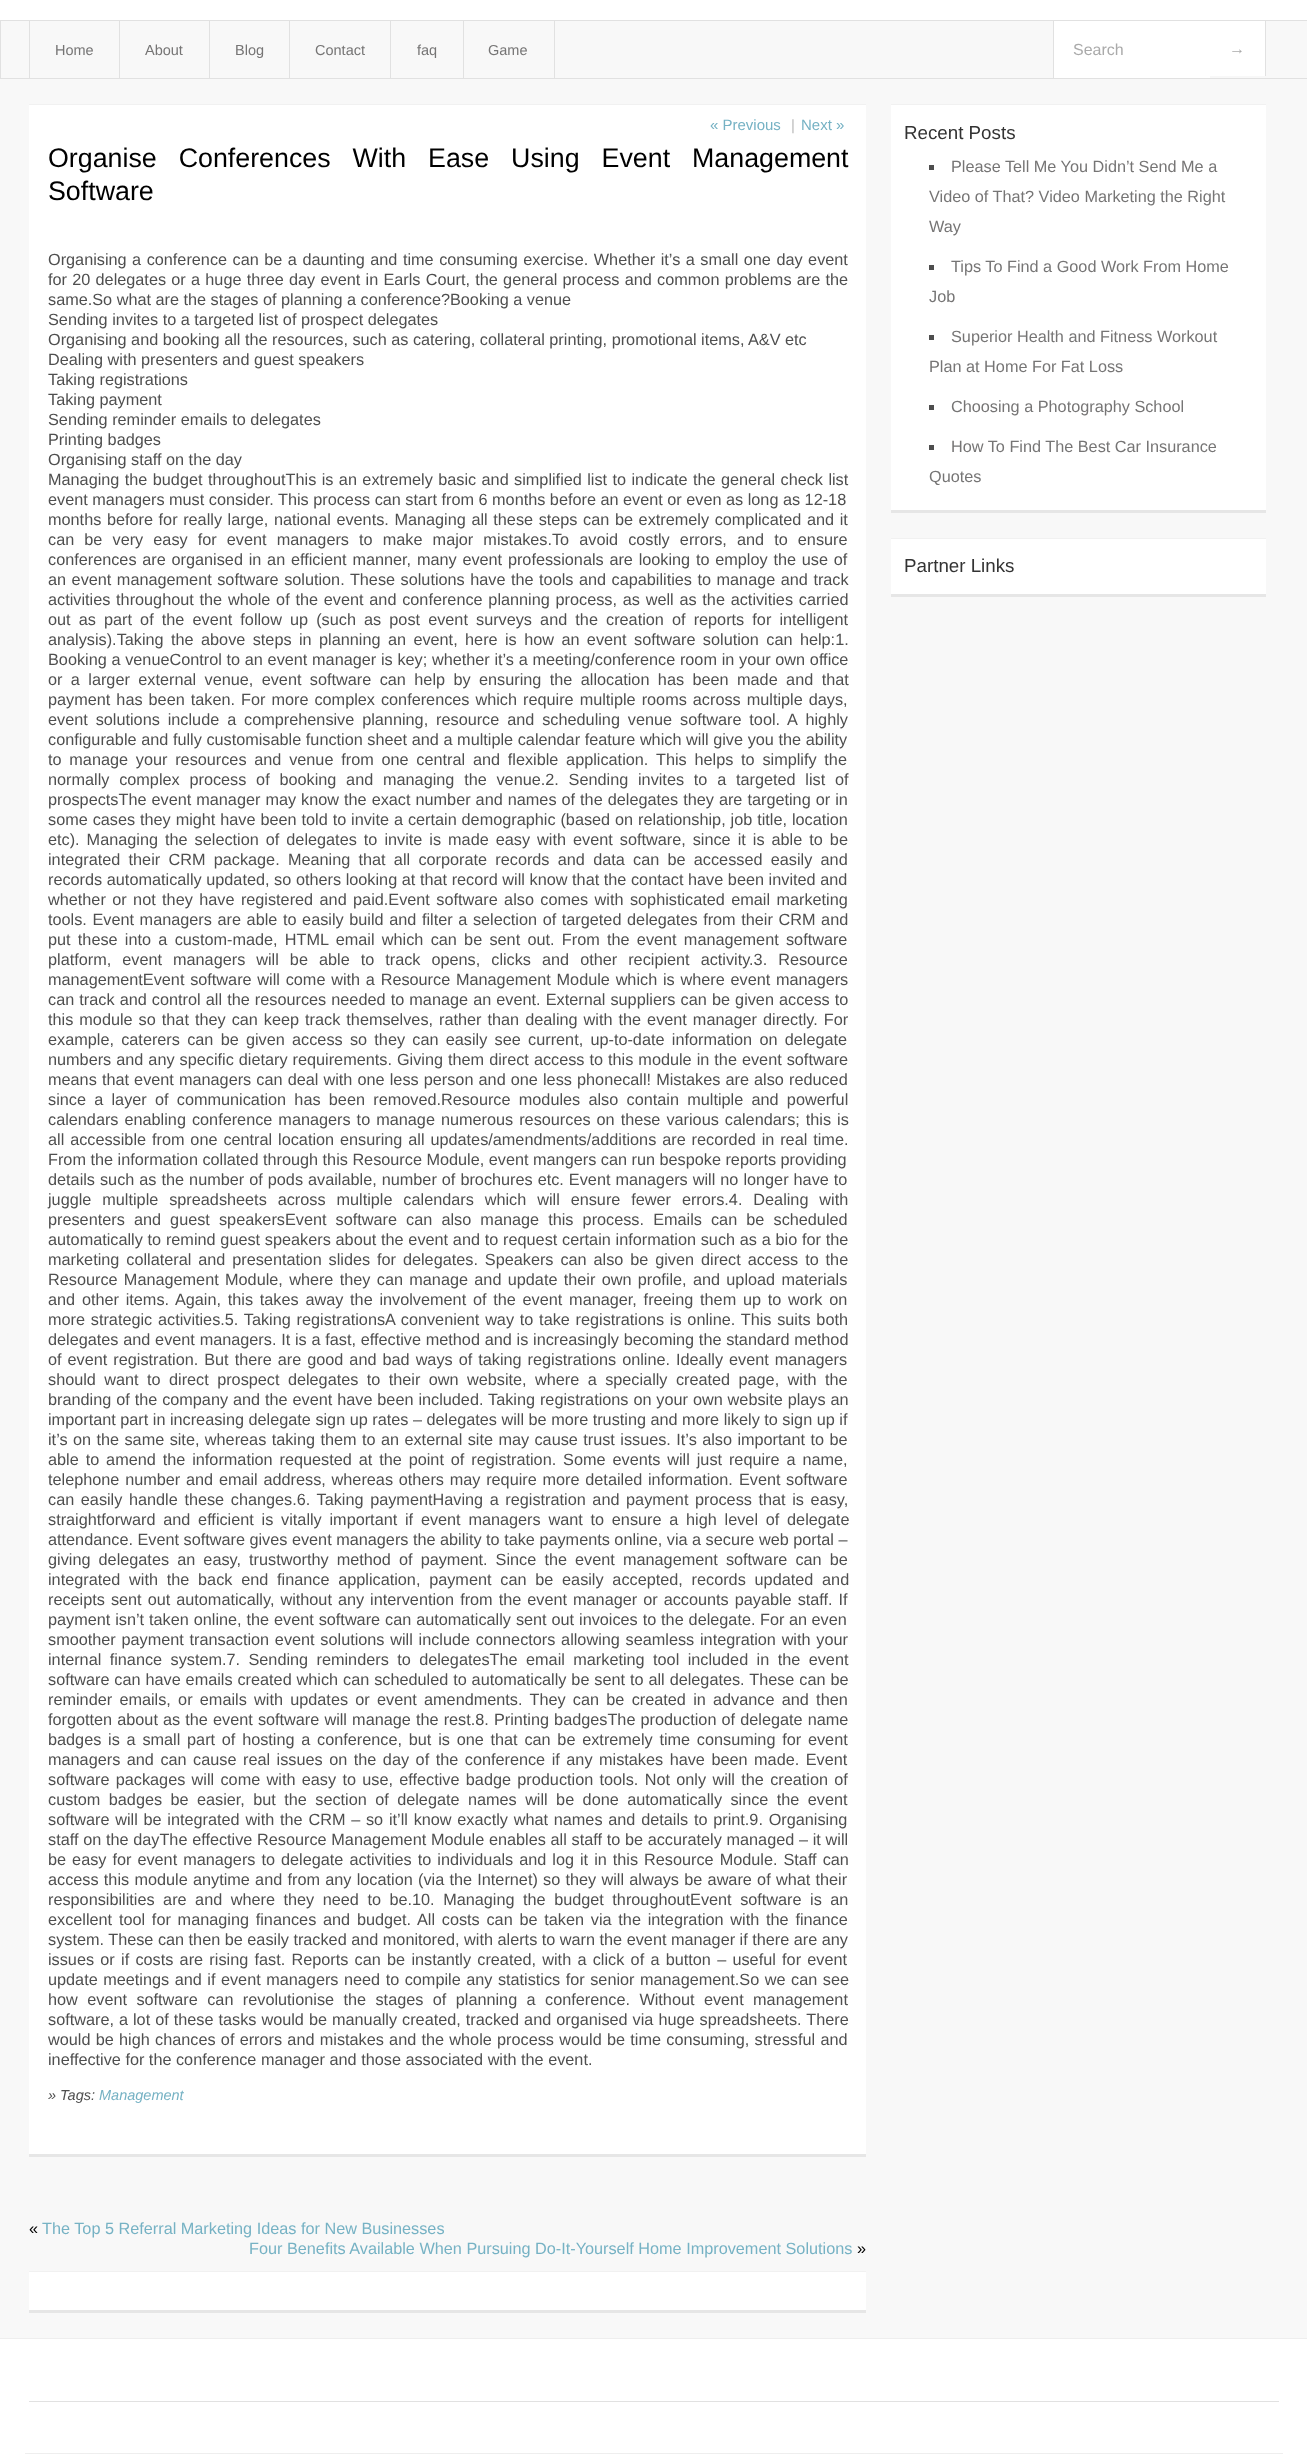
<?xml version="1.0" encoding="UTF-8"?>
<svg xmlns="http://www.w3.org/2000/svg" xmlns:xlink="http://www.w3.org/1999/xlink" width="1307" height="2454">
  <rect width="100%" height="100%" fill="#f8f8f8" />
  <rect width="1307" height="20" fill="#ffffff" />
  <rect x="0.5" y="20.5" width="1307" height="58" fill="none" stroke="#e1e1e1" />
  <rect x="29" y="21" width="1" height="58" fill="#e1e1e1" />
  <rect x="119" y="21" width="1" height="58" fill="#e1e1e1" />
  <rect x="209" y="21" width="1" height="58" fill="#e1e1e1" />
  <rect x="289" y="21" width="1" height="58" fill="#e1e1e1" />
  <rect x="390" y="21" width="1" height="58" fill="#e1e1e1" />
  <rect x="463" y="21" width="1" height="58" fill="#e1e1e1" />
  <rect x="554" y="21" width="1" height="58" fill="#e1e1e1" />
  <rect x="1054" y="21" width="156" height="57" fill="#ffffff" />
  <rect x="1053" y="21" width="1" height="57" fill="#e1e1e1" />
  <rect x="1210" y="21" width="55" height="55" fill="#ffffff" />
  <rect x="1265" y="21" width="1" height="55" fill="#e1e1e1" />
  <rect x="29" y="105" width="837" height="2049" fill="#ffffff" />
  <rect x="29" y="104" width="837" height="1" fill="#f1f1f1" />
  <rect x="29" y="2154" width="837" height="3" fill="#e6e6e6" />
  <rect x="29" y="2272" width="837" height="38" fill="#ffffff" />
  <rect x="29" y="2271" width="837" height="1" fill="#f1f1f1" />
  <rect x="29" y="2310" width="837" height="3" fill="#e6e6e6" />
  <rect x="891" y="105" width="375" height="405" fill="#ffffff" />
  <rect x="891" y="104" width="375" height="1" fill="#f1f1f1" />
  <rect x="891" y="510" width="375" height="3" fill="#e6e6e6" />
  <rect x="929" y="165" width="5" height="5" fill="#4e4e4e" />
  <rect x="929" y="265" width="5" height="5" fill="#4e4e4e" />
  <rect x="929" y="335" width="5" height="5" fill="#4e4e4e" />
  <rect x="929" y="405" width="5" height="5" fill="#4e4e4e" />
  <rect x="929" y="445" width="5" height="5" fill="#4e4e4e" />
  <rect x="891" y="539" width="375" height="55" fill="#ffffff" />
  <rect x="891" y="538" width="375" height="1" fill="#f1f1f1" />
  <rect x="891" y="594" width="375" height="3" fill="#e6e6e6" />
  <rect y="2339" width="1307" height="115" fill="#ffffff" />
  <rect y="2338" width="1307" height="1" fill="#eeeeee" />
  <rect x="29" y="2401" width="1250" height="1" fill="#e1e1e1" />
  <rect x="25" y="2453" width="1258" height="1" fill="#eeeeee" />
  <text x="55" y="55" style="font-family: Liberation Sans; font-size: 14.5px; fill: #767575">Home</text>
  <text x="145" y="55" style="font-family: Liberation Sans; font-size: 14.5px; fill: #767575">About</text>
  <text x="235" y="55" style="font-family: Liberation Sans; font-size: 14.5px; fill: #767575">Blog</text>
  <text x="315" y="55" style="font-family: Liberation Sans; font-size: 14.5px; fill: #767575">Contact</text>
  <text x="417" y="55" style="font-family: Liberation Sans; font-size: 14.5px; fill: #767575">faq</text>
  <text x="488" y="55" style="font-family: Liberation Sans; font-size: 14.5px; fill: #767575">Game</text>
  <text x="1073" y="55" style="font-family: Liberation Sans; font-size: 16px; fill: #aaaaaa">Search</text>
  <text x="1229" y="54" style="font-family: Liberation Sans; font-size: 16px; fill: #aaaaaa">→</text>
  <text x="710" y="130" style="font-family: Liberation Sans; font-size: 15px; fill: #76b2c4">« Previous</text>
  <text x="791" y="130" style="font-family: Liberation Sans; font-size: 15px; fill: #bbbbbb">|</text>
  <text x="801" y="130" style="font-family: Liberation Sans; font-size: 15px; fill: #76b2c4">Next »</text>
  <text x="48" y="167" word-spacing="14.5" style="font-family: Liberation Sans; font-size: 26.8px; fill: #000000">Organise Conferences With Ease Using Event Management</text>
  <text x="48" y="200" style="font-family: Liberation Sans; font-size: 26.8px; fill: #000000">Software</text>
  <text x="48" y="265" word-spacing="1" style="font-family: Liberation Sans; font-size: 16.25px; fill: #4f4f4f">Organising a conference can be a daunting and time consuming exercise. Whether it’s a small one day event</text>
  <text x="48" y="285" word-spacing="0.75" style="font-family: Liberation Sans; font-size: 16.25px; fill: #4f4f4f">for 20 delegates or a huge three day event in Earls Court, the general process and common problems are the</text>
  <text x="48" y="305" style="font-family: Liberation Sans; font-size: 16.25px; fill: #4f4f4f">same.So what are the stages of planning a conference?Booking a venue</text>
  <text x="48" y="325" style="font-family: Liberation Sans; font-size: 16.25px; fill: #4f4f4f">Sending invites to a targeted list of prospect delegates</text>
  <text x="48" y="345" style="font-family: Liberation Sans; font-size: 16.25px; fill: #4f4f4f">Organising and booking all the resources, such as catering, collateral printing, promotional items, A&amp;V etc</text>
  <text x="48" y="365" style="font-family: Liberation Sans; font-size: 16.25px; fill: #4f4f4f">Dealing with presenters and guest speakers</text>
  <text x="48" y="385" style="font-family: Liberation Sans; font-size: 16.25px; fill: #4f4f4f">Taking registrations</text>
  <text x="48" y="405" style="font-family: Liberation Sans; font-size: 16.25px; fill: #4f4f4f">Taking payment</text>
  <text x="48" y="425" style="font-family: Liberation Sans; font-size: 16.25px; fill: #4f4f4f">Sending reminder emails to delegates</text>
  <text x="48" y="445" style="font-family: Liberation Sans; font-size: 16.25px; fill: #4f4f4f">Printing badges</text>
  <text x="48" y="465" style="font-family: Liberation Sans; font-size: 16.25px; fill: #4f4f4f">Organising staff on the day</text>
  <text x="48" y="485" word-spacing="0.9" style="font-family: Liberation Sans; font-size: 16.25px; fill: #4f4f4f">Managing the budget throughoutThis is an extremely basic and simplified list to indicate the general check list</text>
  <text x="48" y="505" style="font-family: Liberation Sans; font-size: 16.25px; fill: #4f4f4f">event managers must consider. This process can start from 6 months before an event or even as long as 12-18</text>
  <text x="48" y="525" word-spacing="1.1" style="font-family: Liberation Sans; font-size: 16.25px; fill: #4f4f4f">months before for really large, national events. Managing all these steps can be extremely complicated and it</text>
  <text x="48" y="545" word-spacing="5.6" style="font-family: Liberation Sans; font-size: 16.25px; fill: #4f4f4f">can be very easy for event managers to make major mistakes.To avoid costly errors, and to ensure</text>
  <text x="48" y="565" word-spacing="1.25" style="font-family: Liberation Sans; font-size: 16.25px; fill: #4f4f4f">conferences are organised in an efficient manner, many event professionals are looking to employ the use of</text>
  <text x="48" y="585" word-spacing="1" style="font-family: Liberation Sans; font-size: 16.25px; fill: #4f4f4f">an event management software solution. These solutions have the tools and capabilities to manage and track</text>
  <text x="48" y="605" word-spacing="1.25" style="font-family: Liberation Sans; font-size: 16.25px; fill: #4f4f4f">activities throughout the whole of the event and conference planning process, as well as the activities carried</text>
  <text x="48" y="625" word-spacing="3.6" style="font-family: Liberation Sans; font-size: 16.25px; fill: #4f4f4f">out as part of the event follow up (such as post event surveys and the creation of reports for intelligent</text>
  <text x="48" y="645" word-spacing="2.9" style="font-family: Liberation Sans; font-size: 16.25px; fill: #4f4f4f">analysis).Taking the above steps in planning an event, here is how an event software solution can help:1.</text>
  <text x="48" y="665" word-spacing="0.2" style="font-family: Liberation Sans; font-size: 16.25px; fill: #4f4f4f">Booking a venueControl to an event manager is key; whether it’s a meeting/conference room in your own office</text>
  <text x="48" y="685" word-spacing="3.9" style="font-family: Liberation Sans; font-size: 16.25px; fill: #4f4f4f">or a larger external venue, event software can help by ensuring the allocation has been made and that</text>
  <text x="48" y="705" word-spacing="1.5" style="font-family: Liberation Sans; font-size: 16.25px; fill: #4f4f4f">payment has been taken.</text>
  <text x="241" y="705" word-spacing="1.5" style="font-family: Liberation Sans; font-size: 16.25px; fill: #4f4f4f">For more complex conferences which require multiple rooms across multiple days,</text>
  <text x="48" y="725" word-spacing="3.4" style="font-family: Liberation Sans; font-size: 16.25px; fill: #4f4f4f">event solutions include a comprehensive planning, resource and scheduling venue software tool.</text>
  <text x="787" y="725" word-spacing="4" style="font-family: Liberation Sans; font-size: 16.25px; fill: #4f4f4f">A highly</text>
  <text x="48" y="745" word-spacing="0.1" style="font-family: Liberation Sans; font-size: 16.25px; fill: #4f4f4f">configurable and fully customisable function sheet and a multiple calendar feature which will give you the ability</text>
  <text x="48" y="765" word-spacing="3.25" style="font-family: Liberation Sans; font-size: 16.25px; fill: #4f4f4f">to manage your resources and venue from one central and flexible application.</text>
  <text x="656" y="765" word-spacing="3.25" style="font-family: Liberation Sans; font-size: 16.25px; fill: #4f4f4f">This helps to simplify the</text>
  <text x="48" y="785" word-spacing="5.25" style="font-family: Liberation Sans; font-size: 16.25px; fill: #4f4f4f">normally complex process of booking and managing the venue.2. Sending invites to a targeted list of</text>
  <text x="48" y="805" word-spacing="0.5" style="font-family: Liberation Sans; font-size: 16.25px; fill: #4f4f4f">prospectsThe event manager may know the exact number and names of the delegates they are targeting or in</text>
  <text x="48" y="825" word-spacing="0.4" style="font-family: Liberation Sans; font-size: 16.25px; fill: #4f4f4f">some cases they might have been told to invite a certain demographic (based on relationship, job title, location</text>
  <text x="48" y="845" word-spacing="2.5" style="font-family: Liberation Sans; font-size: 16.25px; fill: #4f4f4f">etc). Managing the selection of delegates to invite is made easy with event software, since it is able to be</text>
  <text x="48" y="865" word-spacing="3.75" style="font-family: Liberation Sans; font-size: 16.25px; fill: #4f4f4f">integrated their CRM package. Meaning that all corporate records and data can be accessed easily and</text>
  <text x="48" y="885" word-spacing="0.1" style="font-family: Liberation Sans; font-size: 16.25px; fill: #4f4f4f">records automatically updated, so others looking at that record will know that the contact have been invited and</text>
  <text x="48" y="905" word-spacing="1.9" style="font-family: Liberation Sans; font-size: 16.25px; fill: #4f4f4f">whether or not they have registered and paid.Event software also comes with sophisticated email marketing</text>
  <text x="48" y="925" word-spacing="1.1" style="font-family: Liberation Sans; font-size: 16.25px; fill: #4f4f4f">tools. Event managers are able to easily build and filter a selection of targeted delegates from their CRM and</text>
  <text x="48" y="945" word-spacing="2.75" style="font-family: Liberation Sans; font-size: 16.25px; fill: #4f4f4f">put these into a custom-made, HTML email which can be sent out. From the event management software</text>
  <text x="48" y="965" word-spacing="6.5" style="font-family: Liberation Sans; font-size: 16.25px; fill: #4f4f4f">platform, event managers will be able to track opens, clicks and other recipient activity.3. Resource</text>
  <text x="48" y="985" word-spacing="1.25" style="font-family: Liberation Sans; font-size: 16.25px; fill: #4f4f4f">managementEvent software will come with a Resource Management Module which is where event managers</text>
  <text x="48" y="1005" word-spacing="0.6" style="font-family: Liberation Sans; font-size: 16.25px; fill: #4f4f4f">can track and control all the resources needed to manage an event. External suppliers can be given access to</text>
  <text x="48" y="1025" word-spacing="1.5" style="font-family: Liberation Sans; font-size: 16.25px; fill: #4f4f4f">this module so that they can keep track themselves, rather than dealing with the event manager directly. For</text>
  <text x="48" y="1045" word-spacing="2.75" style="font-family: Liberation Sans; font-size: 16.25px; fill: #4f4f4f">example, caterers can be given access so they can easily see current, up-to-date information on delegate</text>
  <text x="48" y="1065" word-spacing="0.5" style="font-family: Liberation Sans; font-size: 16.25px; fill: #4f4f4f">numbers and any specific dietary requirements. Giving them direct access to this module in the event software</text>
  <text x="48" y="1085" word-spacing="0.6" style="font-family: Liberation Sans; font-size: 16.25px; fill: #4f4f4f">means that event managers can deal with one less person and one less phonecall! Mistakes are also reduced</text>
  <text x="48" y="1105" word-spacing="3.75" style="font-family: Liberation Sans; font-size: 16.25px; fill: #4f4f4f">since a layer of communication has been removed.Resource modules also contain multiple and powerful</text>
  <text x="48" y="1125" word-spacing="1.5" style="font-family: Liberation Sans; font-size: 16.25px; fill: #4f4f4f">calendars enabling conference managers to manage numerous resources on these various calendars; this is</text>
  <text x="48" y="1145" word-spacing="1.4" style="font-family: Liberation Sans; font-size: 16.25px; fill: #4f4f4f">all accessible from one central location ensuring all updates/amendments/additions are recorded in real time.</text>
  <text x="48" y="1165" style="font-family: Liberation Sans; font-size: 16.25px; fill: #4f4f4f">From the information collated through this Resource Module, event mangers can run bespoke reports providing</text>
  <text x="48" y="1185" word-spacing="0.5" style="font-family: Liberation Sans; font-size: 16.25px; fill: #4f4f4f">details such as the number of pods available, number of brochures etc. Event managers will no longer have to</text>
  <text x="48" y="1205" word-spacing="6.4" style="font-family: Liberation Sans; font-size: 16.25px; fill: #4f4f4f">juggle multiple spreadsheets across multiple calendars which will ensure fewer errors.4. Dealing with</text>
  <text x="48" y="1225" word-spacing="4.6" style="font-family: Liberation Sans; font-size: 16.25px; fill: #4f4f4f">presenters and guest speakersEvent software can also manage this process. Emails can be scheduled</text>
  <text x="48" y="1245" word-spacing="0.25" style="font-family: Liberation Sans; font-size: 16.25px; fill: #4f4f4f">automatically to remind guest speakers about the event and to request certain information such as a bio for the</text>
  <text x="48" y="1265" word-spacing="2.4" style="font-family: Liberation Sans; font-size: 16.25px; fill: #4f4f4f">marketing collateral and presentation slides for delegates. Speakers can also be given direct access to the</text>
  <text x="48" y="1285" word-spacing="1.8" style="font-family: Liberation Sans; font-size: 16.25px; fill: #4f4f4f">Resource Management Module, where they can manage and update their own profile, and upload materials</text>
  <text x="48" y="1305" word-spacing="2.25" style="font-family: Liberation Sans; font-size: 16.25px; fill: #4f4f4f">and other items. Again, this takes away the involvement of the event manager, freeing them up to work on</text>
  <text x="48" y="1325" word-spacing="1.25" style="font-family: Liberation Sans; font-size: 16.25px; fill: #4f4f4f">more strategic activities.5. Taking registrationsA convenient way to take registrations is online. This suits both</text>
  <text x="48" y="1345" word-spacing="0.25" style="font-family: Liberation Sans; font-size: 16.25px; fill: #4f4f4f">delegates and event managers. It is a fast, effective method and is increasingly becoming the standard method</text>
  <text x="48" y="1365" word-spacing="1.5" style="font-family: Liberation Sans; font-size: 16.25px; fill: #4f4f4f">of event registration. But there are good and bad ways of taking registrations online. Ideally event managers</text>
  <text x="48" y="1385" word-spacing="3.9" style="font-family: Liberation Sans; font-size: 16.25px; fill: #4f4f4f">should want to direct prospect delegates to their own website, where a specially created page, with the</text>
  <text x="48" y="1405" word-spacing="0.4" style="font-family: Liberation Sans; font-size: 16.25px; fill: #4f4f4f">branding of the company and the event have been included. Taking registrations on your own website plays an</text>
  <text x="48" y="1425" style="font-family: Liberation Sans; font-size: 16.25px; fill: #4f4f4f">important part in increasing delegate sign up rates – delegates will be more trusting and more likely to sign up if</text>
  <text x="48" y="1445" word-spacing="0.9" style="font-family: Liberation Sans; font-size: 16.25px; fill: #4f4f4f">it’s on the same site, whereas taking them to an external site may cause trust issues. It’s also important to be</text>
  <text x="48" y="1465" word-spacing="2.4" style="font-family: Liberation Sans; font-size: 16.25px; fill: #4f4f4f">able to amend the information requested at the point of registration. Some events will just require a name,</text>
  <text x="48" y="1485" word-spacing="1.25" style="font-family: Liberation Sans; font-size: 16.25px; fill: #4f4f4f">telephone number and email address, whereas others may require more detailed information.</text>
  <text x="739" y="1485" word-spacing="1" style="font-family: Liberation Sans; font-size: 16.25px; fill: #4f4f4f">Event software</text>
  <text x="48" y="1505" word-spacing="2.1" style="font-family: Liberation Sans; font-size: 16.25px; fill: #4f4f4f">can easily handle these changes.6. Taking paymentHaving a registration and payment process that is easy,</text>
  <text x="48" y="1525" word-spacing="3.25" style="font-family: Liberation Sans; font-size: 16.25px; fill: #4f4f4f">straightforward and efficient is vitally important if event managers want to ensure a high level of delegate</text>
  <text x="48" y="1545" style="font-family: Liberation Sans; font-size: 16.25px; fill: #4f4f4f">attendance. Event software gives event managers the ability to take payments online, via a secure web portal –</text>
  <text x="48" y="1565" word-spacing="3.6" style="font-family: Liberation Sans; font-size: 16.25px; fill: #4f4f4f">giving delegates an easy, trustworthy method of payment. Since the event management software can be</text>
  <text x="48" y="1585" word-spacing="4.25" style="font-family: Liberation Sans; font-size: 16.25px; fill: #4f4f4f">integrated with the back end finance application, payment can be easily accepted, records updated and</text>
  <text x="48" y="1605" word-spacing="1.5" style="font-family: Liberation Sans; font-size: 16.25px; fill: #4f4f4f">receipts sent out automatically, without any intervention from the event manager or accounts payable staff. If</text>
  <text x="48" y="1625" word-spacing="0.4" style="font-family: Liberation Sans; font-size: 16.25px; fill: #4f4f4f">payment isn’t taken online, the event software can automatically sent out invoices to the delegate.</text>
  <text x="760" y="1625" style="font-family: Liberation Sans; font-size: 16.25px; fill: #4f4f4f">For an even</text>
  <text x="48" y="1645" word-spacing="1.25" style="font-family: Liberation Sans; font-size: 16.25px; fill: #4f4f4f">smoother payment transaction event solutions will include connectors allowing seamless integration with your</text>
  <text x="48" y="1665" word-spacing="3.9" style="font-family: Liberation Sans; font-size: 16.25px; fill: #4f4f4f">internal finance system.7. Sending reminders to delegatesThe email marketing tool included in the event</text>
  <text x="48" y="1685" word-spacing="0.4" style="font-family: Liberation Sans; font-size: 16.25px; fill: #4f4f4f">software can have emails created which can scheduled to automatically be sent to all delegates. These can be</text>
  <text x="48" y="1705" word-spacing="2.75" style="font-family: Liberation Sans; font-size: 16.25px; fill: #4f4f4f">reminder emails, or emails with updates or event amendments. They can be created in advance and then</text>
  <text x="48" y="1725" word-spacing="0.6" style="font-family: Liberation Sans; font-size: 16.25px; fill: #4f4f4f">forgotten about as the event software will manage the rest.8. Printing badgesThe production of delegate name</text>
  <text x="48" y="1745" word-spacing="2.25" style="font-family: Liberation Sans; font-size: 16.25px; fill: #4f4f4f">badges is a small part of hosting a conference, but is one that can be extremely time consuming for event</text>
  <text x="48" y="1765" word-spacing="2" style="font-family: Liberation Sans; font-size: 16.25px; fill: #4f4f4f">managers and can cause real issues on the day of the conference if any mistakes have been made. Event</text>
  <text x="48" y="1785" word-spacing="1.8" style="font-family: Liberation Sans; font-size: 16.25px; fill: #4f4f4f">software packages will come with easy to use, effective badge production tools. Not only will the creation of</text>
  <text x="48" y="1805" word-spacing="3.9" style="font-family: Liberation Sans; font-size: 16.25px; fill: #4f4f4f">custom badges be easier, but the section of delegate names will be done automatically since the event</text>
  <text x="48" y="1825" word-spacing="1.25" style="font-family: Liberation Sans; font-size: 16.25px; fill: #4f4f4f">software will be integrated with the CRM – so it’ll know exactly what names and details to print.9. Organising</text>
  <text x="48" y="1845" word-spacing="0.2" style="font-family: Liberation Sans; font-size: 16.25px; fill: #4f4f4f">staff on the dayThe effective Resource Management Module enables all staff to be accurately managed – it will</text>
  <text x="48" y="1865" word-spacing="1.5" style="font-family: Liberation Sans; font-size: 16.25px; fill: #4f4f4f">be easy for event managers to delegate activities to individuals and log it in this Resource Module. Staff can</text>
  <text x="48" y="1885" word-spacing="0.75" style="font-family: Liberation Sans; font-size: 16.25px; fill: #4f4f4f">access this module anytime and from any location (via the Internet) so they will always be aware of what their</text>
  <text x="48" y="1905" word-spacing="4" style="font-family: Liberation Sans; font-size: 16.25px; fill: #4f4f4f">responsibilities are and where they need to be.10. Managing the budget throughoutEvent software is an</text>
  <text x="48" y="1925" word-spacing="2.25" style="font-family: Liberation Sans; font-size: 16.25px; fill: #4f4f4f">excellent tool for managing finances and budget. All costs can be taken via the integration with the finance</text>
  <text x="48" y="1945" style="font-family: Liberation Sans; font-size: 16.25px; fill: #4f4f4f">system. These can then be easily tracked and monitored, with alerts to warn the event manager if there are any</text>
  <text x="48" y="1965" word-spacing="1.75" style="font-family: Liberation Sans; font-size: 16.25px; fill: #4f4f4f">issues or if costs are rising fast. Reports can be instantly created, with a click of a button – useful for event</text>
  <text x="48" y="1985" word-spacing="1" style="font-family: Liberation Sans; font-size: 16.25px; fill: #4f4f4f">update meetings and if event managers need to compile any statistics for senior management.So we can see</text>
  <text x="48" y="2005" word-spacing="4.9" style="font-family: Liberation Sans; font-size: 16.25px; fill: #4f4f4f">how event software can revolutionise the stages of planning a conference. Without event management</text>
  <text x="48" y="2025" word-spacing="0.5" style="font-family: Liberation Sans; font-size: 16.25px; fill: #4f4f4f">software, a lot of these tasks would be manually created, tracked and organised via huge spreadsheets. There</text>
  <text x="48" y="2045" word-spacing="0.75" style="font-family: Liberation Sans; font-size: 16.25px; fill: #4f4f4f">would be high chances of errors and mistakes and the whole process would be time consuming, stressful and</text>
  <text x="48" y="2065" style="font-family: Liberation Sans; font-size: 16.25px; fill: #4f4f4f">ineffective for the conference manager and those associated with the event.</text>
  <text x="48" y="2100" style="font-family: Liberation Sans; font-size: 14.5px; font-style: italic; fill: #4f4f4f">» Tags:</text>
  <text x="99" y="2100" style="font-family: Liberation Sans; font-size: 14.5px; font-style: italic; fill: #76b2c4">Management</text>
  <text x="29" y="2234" style="font-family: Liberation Sans; font-size: 16.25px; fill: #000000">«</text>
  <text x="42" y="2234" style="font-family: Liberation Sans; font-size: 16.25px; fill: #76b2c4">The Top 5 Referral Marketing Ideas for New Businesses</text>
  <text x="249" y="2254" style="font-family: Liberation Sans; font-size: 16.25px; fill: #76b2c4">Four Benefits Available When Pursuing Do-It-Yourself Home Improvement Solutions</text>
  <text x="857" y="2254" style="font-family: Liberation Sans; font-size: 16.25px; fill: #000000">»</text>
  <text x="904" y="139" style="font-family: Liberation Sans; font-size: 18.75px; fill: #333333">Recent Posts</text>
  <text x="951" y="172" style="font-family: Liberation Sans; font-size: 16.25px; fill: #767575">Please Tell Me You Didn’t Send Me a</text>
  <text x="929" y="202" style="font-family: Liberation Sans; font-size: 16.25px; fill: #767575">Video of That? Video Marketing the Right</text>
  <text x="929" y="232" style="font-family: Liberation Sans; font-size: 16.25px; fill: #767575">Way</text>
  <text x="951" y="272" style="font-family: Liberation Sans; font-size: 16.25px; fill: #767575">Tips To Find a Good Work From Home</text>
  <text x="929" y="302" style="font-family: Liberation Sans; font-size: 16.25px; fill: #767575">Job</text>
  <text x="951" y="342" style="font-family: Liberation Sans; font-size: 16.25px; fill: #767575">Superior Health and Fitness Workout</text>
  <text x="929" y="372" style="font-family: Liberation Sans; font-size: 16.25px; fill: #767575">Plan at Home For Fat Loss</text>
  <text x="951" y="412" style="font-family: Liberation Sans; font-size: 16.25px; fill: #767575">Choosing a Photography School</text>
  <text x="951" y="452" style="font-family: Liberation Sans; font-size: 16.25px; fill: #767575">How To Find The Best Car Insurance</text>
  <text x="929" y="482" style="font-family: Liberation Sans; font-size: 16.25px; fill: #767575">Quotes</text>
  <text x="904" y="572" style="font-family: Liberation Sans; font-size: 18.75px; fill: #333333">Partner Links</text>
</svg>
